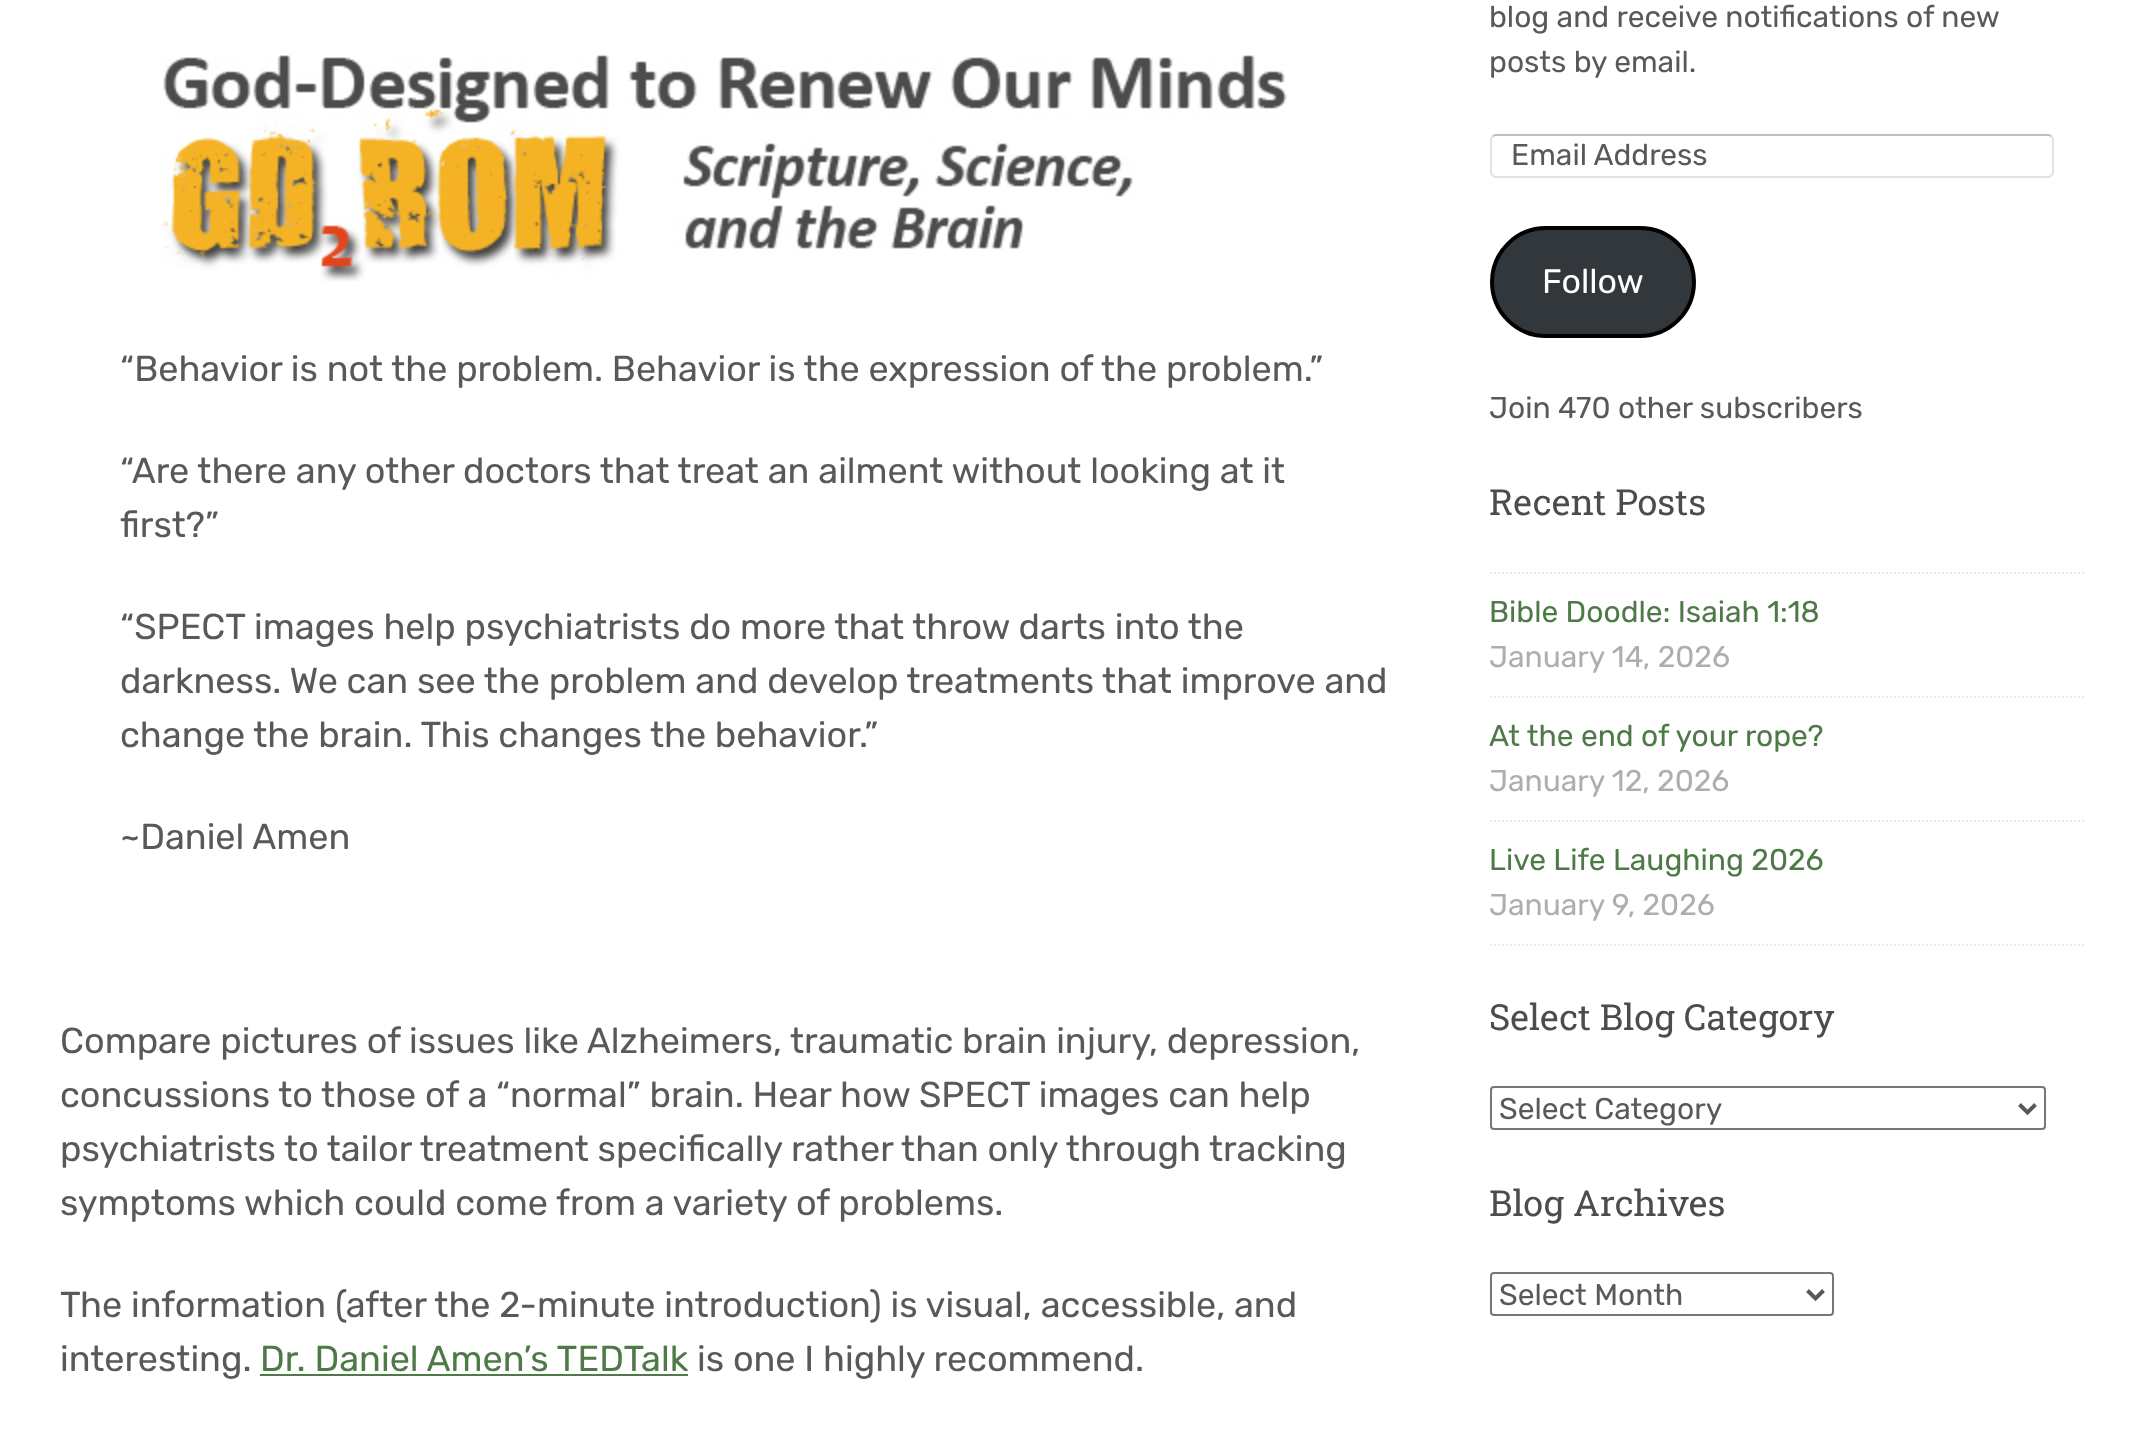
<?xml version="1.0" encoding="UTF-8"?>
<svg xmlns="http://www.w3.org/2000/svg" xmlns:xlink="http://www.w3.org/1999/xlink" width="2144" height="1436">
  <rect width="100%" height="100%" fill="#ffffff" />
  <image x="162" y="55" width="1125" height="227" xlink:href="image1.png" />
  <rect x="260" y="1374" width="428" height="2" fill="#4e7a47" />
  <path d="M 1492.5 136.5 c 1 -1 2 -1.5 3.5 -1.5 h 552 c 1.5 0 2.5 0.5 3.5 1.5" fill="none" stroke="#bfbfbf" stroke-width="2" />
  <path d="M 2051.5 136.5 c 1 1 1.5 2 1.5 3.5 v 32 c 0 1.5 -0.5 2.5 -1.5 3.5 c -1 1 -2 1.5 -3.5 1.5 h -552 c -1.5 0 -2.5 -0.5 -3.5 -1.5 c -1 -1 -1.5 -2 -1.5 -3.5 v -32 c 0 -1.5 0.5 -2.5 1.5 -3.5" fill="none" stroke="#e2e2e2" stroke-width="2" />
  <rect x="1492" y="228" width="202" height="108" rx="54" fill="#32373c" stroke="#000000" stroke-width="4" />
  <path d="M 1490 573 h 594" fill="none" stroke="#ebebeb" stroke-width="2" stroke-dasharray="2 2" />
  <path d="M 1490 697 h 594" fill="none" stroke="#ebebeb" stroke-width="2" stroke-dasharray="2 2" />
  <path d="M 1490 821 h 594" fill="none" stroke="#ebebeb" stroke-width="2" stroke-dasharray="2 2" />
  <path d="M 1490 945 h 594" fill="none" stroke="#ebebeb" stroke-width="2" stroke-dasharray="2 2" />
  <rect x="1491" y="1087" width="554" height="42" rx="3" fill="none" stroke="#767676" stroke-width="2" />
  <path d="M 2019.5 1104.5 l 8 8 l 8 -8" fill="none" stroke="#595959" stroke-width="4" />
  <rect x="1491" y="1273" width="342" height="42" rx="3" fill="none" stroke="#767676" stroke-width="2" />
  <path d="M 1807.5 1290.5 l 8 8 l 8 -8" fill="none" stroke="#595959" stroke-width="4" />
  <text x="120" y="381" style="font-family: Rubik; font-size: 36px; fill: #595959">“Behavior is not the problem. Behavior is the expression of the problem.”</text>
  <text x="120" y="483" style="font-family: Rubik; font-size: 36px; fill: #595959">“Are there any other doctors that treat an ailment without looking at it</text>
  <text x="120" y="537" style="font-family: Rubik; font-size: 36px; fill: #595959">first?”</text>
  <text x="120" y="639" style="font-family: Rubik; font-size: 36px; fill: #595959">“SPECT images help psychiatrists do more that throw darts into the</text>
  <text x="120" y="693" style="font-family: Rubik; font-size: 36px; fill: #595959">darkness. We can see the problem and develop treatments that improve and</text>
  <text x="120" y="747" style="font-family: Rubik; font-size: 36px; fill: #595959">change the brain. This changes the behavior.”</text>
  <text x="120" y="849" style="font-family: Rubik; font-size: 36px; fill: #595959">~Daniel Amen</text>
  <text x="60" y="1053" style="font-family: Rubik; font-size: 36px; fill: #595959">Compare pictures of issues like Alzheimers, traumatic brain injury, depression,</text>
  <text x="60" y="1107" style="font-family: Rubik; font-size: 36px; fill: #595959">concussions to those of a “normal” brain. Hear how SPECT images can help</text>
  <text x="60" y="1161" style="font-family: Rubik; font-size: 36px; fill: #595959">psychiatrists to tailor treatment specifically rather than only through tracking</text>
  <text x="60" y="1215" style="font-family: Rubik; font-size: 36px; fill: #595959">symptoms which could come from a variety of problems.</text>
  <text x="60" y="1317" style="font-family: Rubik; font-size: 36px; fill: #595959">The information (after the 2-minute introduction) is visual, accessible, and</text>
  <text x="60" y="1371" style="font-family: Rubik; font-size: 36px; fill: #595959">interesting.</text>
  <text x="260" y="1371" style="font-family: Rubik; font-size: 36px; fill: #4e7a47">Dr. Daniel Amen’s TEDTalk</text>
  <text x="697" y="1371" style="font-family: Rubik; font-size: 36px; fill: #595959">is one I highly recommend.</text>
  <text x="1489" y="27" style="font-family: Rubik; font-size: 30px; fill: #595959">blog and receive notifications of new</text>
  <text x="1489" y="72" style="font-family: Rubik; font-size: 30px; fill: #595959">posts by email.</text>
  <text x="1511" y="165" style="font-family: Rubik; font-size: 30px; fill: #595959">Email Address</text>
  <text x="1542" y="293" style="font-family: Rubik; font-size: 34px; fill: #ffffff">Follow</text>
  <text x="1489" y="418" style="font-family: Rubik; font-size: 30px; fill: #595959">Join 470 other subscribers</text>
  <text x="1489" y="515" style="font-family: Roboto Slab; font-size: 36px; fill: #4d4c4c">Recent Posts</text>
  <text x="1489" y="622" style="font-family: Rubik; font-size: 30px; fill: #4e7a47">Bible Doodle: Isaiah 1:18</text>
  <text x="1489" y="667" style="font-family: Rubik; font-size: 30px; fill: #aeaeae">January 14, 2026</text>
  <text x="1489" y="746" style="font-family: Rubik; font-size: 30px; fill: #4e7a47">At the end of your rope?</text>
  <text x="1489" y="791" style="font-family: Rubik; font-size: 30px; fill: #aeaeae">January 12, 2026</text>
  <text x="1489" y="870" style="font-family: Rubik; font-size: 30px; fill: #4e7a47">Live Life Laughing 2026</text>
  <text x="1489" y="915" style="font-family: Rubik; font-size: 30px; fill: #aeaeae">January 9, 2026</text>
  <text x="1489" y="1030" style="font-family: Roboto Slab; font-size: 36px; fill: #4d4c4c">Select Blog Category</text>
  <text x="1499" y="1119" style="font-family: Rubik; font-size: 30px; fill: #595959">Select Category</text>
  <text x="1489" y="1216" style="font-family: Roboto Slab; font-size: 36px; fill: #4d4c4c">Blog Archives</text>
  <text x="1499" y="1305" style="font-family: Rubik; font-size: 30px; fill: #595959">Select Month</text>
</svg>
